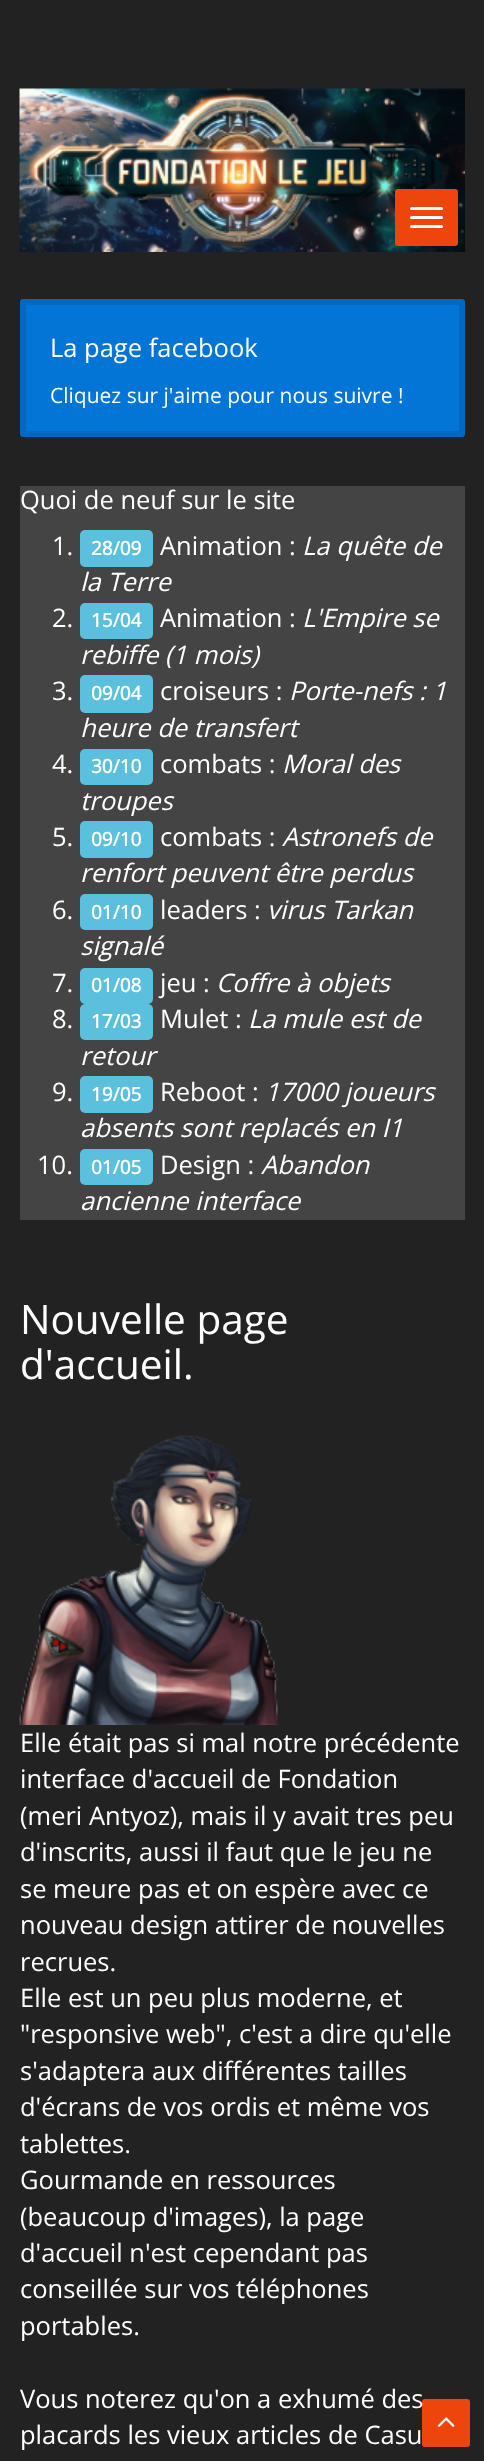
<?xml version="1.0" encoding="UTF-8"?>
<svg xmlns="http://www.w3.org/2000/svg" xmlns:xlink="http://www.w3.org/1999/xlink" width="484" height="2461">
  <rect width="100%" height="100%" fill="#222222" />
  <image x="19" y="88" width="446" height="164" xlink:href="image1.png" />
  <rect x="395" y="189" width="63" height="57" rx="3" fill="#ed450c" />
  <rect x="410" y="207" width="33" height="3" rx="1.5" fill="#ffffff" />
  <rect x="410" y="216" width="33" height="3" rx="1.5" fill="#ffffff" />
  <rect x="410" y="225" width="33" height="3" rx="1.5" fill="#ffffff" />
  <rect x="20" y="299" width="445" height="138" rx="3" fill="#0275d7" />
  <rect x="23" y="302" width="439" height="132" fill="none" stroke="#000000" stroke-opacity="0.1" stroke-width="6" />
  <rect x="20" y="486" width="445" height="734" fill="#444444" />
  <rect x="80" y="530" width="73" height="37" rx="5" fill="#5bc0de" />
  <rect x="80" y="603" width="73" height="36" rx="5" fill="#5bc0de" />
  <rect x="80" y="675" width="73" height="38" rx="5" fill="#5bc0de" />
  <rect x="80" y="749" width="73" height="36" rx="5" fill="#5bc0de" />
  <rect x="80" y="821" width="73" height="37" rx="5" fill="#5bc0de" />
  <rect x="80" y="894" width="73" height="36" rx="5" fill="#5bc0de" />
  <rect x="80" y="968" width="73" height="36" rx="5" fill="#5bc0de" />
  <rect x="80" y="1004" width="73" height="36" rx="5" fill="#5bc0de" />
  <rect x="80" y="1076" width="73" height="37" rx="5" fill="#5bc0de" />
  <rect x="80" y="1149" width="73" height="36" rx="5" fill="#5bc0de" />
  <image x="19" y="1435" width="259" height="290" xlink:href="image2.png" />
  <rect x="422" y="2399" width="48" height="48" rx="3" fill="#ed450c" />
  <image x="437" y="2417" width="18" height="10" xlink:href="image3.png" />
  <text x="50" y="357" style="font-family: Open Sans; font-size: 25.5px; fill: #ffffff">La page facebook</text>
  <text x="50" y="403" style="font-family: Open Sans; font-size: 21px; fill: #ffffff">Cliquez sur j'aime pour nous suivre !</text>
  <text x="20" y="509" style="font-family: Open Sans; font-size: 25.5px; fill: #ffffff">Quoi de neuf sur le site</text>
  <text x="52" y="555" style="font-family: Open Sans; font-size: 25.5px; fill: #ffffff">1.</text>
  <text x="91" y="555" style="font-family: Open Sans; font-size: 19px; font-weight: bold; fill: #ffffff">28/09</text>
  <text x="160" y="555" style="font-family: Open Sans; font-size: 25.5px; fill: #ffffff">Animation :</text>
  <text x="302" y="555" style="font-family: Open Sans; font-size: 25.5px; font-style: italic; fill: #ffffff">La quête de</text>
  <text x="80" y="591" style="font-family: Open Sans; font-size: 25.5px; font-style: italic; fill: #ffffff">la Terre</text>
  <text x="52" y="627" style="font-family: Open Sans; font-size: 25.5px; fill: #ffffff">2.</text>
  <text x="91" y="627" style="font-family: Open Sans; font-size: 19px; font-weight: bold; fill: #ffffff">15/04</text>
  <text x="160" y="627" style="font-family: Open Sans; font-size: 25.5px; fill: #ffffff">Animation :</text>
  <text x="302" y="627" style="font-family: Open Sans; font-size: 25.5px; font-style: italic; fill: #ffffff">L'Empire se</text>
  <text x="80" y="664" style="font-family: Open Sans; font-size: 25.5px; font-style: italic; fill: #ffffff">rebiffe (1 mois)</text>
  <text x="52" y="700" style="font-family: Open Sans; font-size: 25.5px; fill: #ffffff">3.</text>
  <text x="91" y="700" style="font-family: Open Sans; font-size: 19px; font-weight: bold; fill: #ffffff">09/04</text>
  <text x="160" y="700" style="font-family: Open Sans; font-size: 25.5px; fill: #ffffff">croiseurs :</text>
  <text x="289" y="700" style="font-family: Open Sans; font-size: 25.5px; font-style: italic; fill: #ffffff">Porte-nefs : 1</text>
  <text x="80" y="737" style="font-family: Open Sans; font-size: 25.5px; font-style: italic; fill: #ffffff">heure de transfert</text>
  <text x="52" y="773" style="font-family: Open Sans; font-size: 25.5px; fill: #ffffff">4.</text>
  <text x="91" y="773" style="font-family: Open Sans; font-size: 19px; font-weight: bold; fill: #ffffff">30/10</text>
  <text x="160" y="773" style="font-family: Open Sans; font-size: 25.5px; fill: #ffffff">combats :</text>
  <text x="282" y="773" style="font-family: Open Sans; font-size: 25.5px; font-style: italic; fill: #ffffff">Moral des</text>
  <text x="80" y="810" style="font-family: Open Sans; font-size: 25.5px; font-style: italic; fill: #ffffff">troupes</text>
  <text x="52" y="846" style="font-family: Open Sans; font-size: 25.5px; fill: #ffffff">5.</text>
  <text x="91" y="846" style="font-family: Open Sans; font-size: 19px; font-weight: bold; fill: #ffffff">09/10</text>
  <text x="160" y="846" style="font-family: Open Sans; font-size: 25.5px; fill: #ffffff">combats :</text>
  <text x="282" y="846" style="font-family: Open Sans; font-size: 25.5px; font-style: italic; fill: #ffffff">Astronefs de</text>
  <text x="80" y="882" style="font-family: Open Sans; font-size: 25.5px; font-style: italic; fill: #ffffff">renfort peuvent être perdus</text>
  <text x="52" y="919" style="font-family: Open Sans; font-size: 25.5px; fill: #ffffff">6.</text>
  <text x="91" y="919" style="font-family: Open Sans; font-size: 19px; font-weight: bold; fill: #ffffff">01/10</text>
  <text x="160" y="919" style="font-family: Open Sans; font-size: 25.5px; fill: #ffffff">leaders :</text>
  <text x="267" y="919" style="font-family: Open Sans; font-size: 25.5px; font-style: italic; fill: #ffffff">virus Tarkan</text>
  <text x="80" y="955" style="font-family: Open Sans; font-size: 25.5px; font-style: italic; fill: #ffffff">signalé</text>
  <text x="52" y="992" style="font-family: Open Sans; font-size: 25.5px; fill: #ffffff">7.</text>
  <text x="91" y="992" style="font-family: Open Sans; font-size: 19px; font-weight: bold; fill: #ffffff">01/08</text>
  <text x="160" y="992" style="font-family: Open Sans; font-size: 25.5px; fill: #ffffff">jeu :</text>
  <text x="216" y="992" style="font-family: Open Sans; font-size: 25.5px; font-style: italic; fill: #ffffff">Coffre à objets</text>
  <text x="52" y="1028" style="font-family: Open Sans; font-size: 25.5px; fill: #ffffff">8.</text>
  <text x="91" y="1028" style="font-family: Open Sans; font-size: 19px; font-weight: bold; fill: #ffffff">17/03</text>
  <text x="160" y="1028" style="font-family: Open Sans; font-size: 25.5px; fill: #ffffff">Mulet :</text>
  <text x="248" y="1028" style="font-family: Open Sans; font-size: 25.5px; font-style: italic; fill: #ffffff">La mule est de</text>
  <text x="80" y="1065" style="font-family: Open Sans; font-size: 25.5px; font-style: italic; fill: #ffffff">retour</text>
  <text x="52" y="1101" style="font-family: Open Sans; font-size: 25.5px; fill: #ffffff">9.</text>
  <text x="91" y="1101" style="font-family: Open Sans; font-size: 19px; font-weight: bold; fill: #ffffff">19/05</text>
  <text x="160" y="1101" style="font-family: Open Sans; font-size: 25.5px; fill: #ffffff">Reboot :</text>
  <text x="265" y="1101" style="font-family: Open Sans; font-size: 25.5px; font-style: italic; fill: #ffffff">17000 joueurs</text>
  <text x="80" y="1137" style="font-family: Open Sans; font-size: 25.5px; font-style: italic; fill: #ffffff">absents sont replacés en I1</text>
  <text x="37" y="1174" style="font-family: Open Sans; font-size: 25.5px; fill: #ffffff">10.</text>
  <text x="91" y="1174" style="font-family: Open Sans; font-size: 19px; font-weight: bold; fill: #ffffff">01/05</text>
  <text x="160" y="1174" style="font-family: Open Sans; font-size: 25.5px; fill: #ffffff">Design :</text>
  <text x="261" y="1174" style="font-family: Open Sans; font-size: 25.5px; font-style: italic; fill: #ffffff">Abandon</text>
  <text x="80" y="1210" style="font-family: Open Sans; font-size: 25.5px; font-style: italic; fill: #ffffff">ancienne interface</text>
  <text x="20" y="1334" style="font-family: Open Sans; font-size: 40.5px; fill: #ffffff">Nouvelle page</text>
  <text x="20" y="1379" style="font-family: Open Sans; font-size: 40.5px; fill: #ffffff">d'accueil.</text>
  <text x="20" y="1752" style="font-family: Open Sans; font-size: 25.5px; fill: #ffffff">Elle était pas si mal notre précédente</text>
  <text x="20" y="1788" style="font-family: Open Sans; font-size: 25.5px; fill: #ffffff">interface d'accueil de Fondation</text>
  <text x="20" y="1825" style="font-family: Open Sans; font-size: 25.5px; fill: #ffffff">(meri Antyoz), mais il y avait tres peu</text>
  <text x="20" y="1861" style="font-family: Open Sans; font-size: 25.5px; fill: #ffffff">d'inscrits, aussi il faut que le jeu ne</text>
  <text x="20" y="1898" style="font-family: Open Sans; font-size: 25.5px; fill: #ffffff">se meure pas et on espère avec ce</text>
  <text x="20" y="1934" style="font-family: Open Sans; font-size: 25.5px; fill: #ffffff">nouveau design attirer de nouvelles</text>
  <text x="20" y="1971" style="font-family: Open Sans; font-size: 25.5px; fill: #ffffff">recrues.</text>
  <text x="20" y="2007" style="font-family: Open Sans; font-size: 25.5px; fill: #ffffff">Elle est un peu plus moderne, et</text>
  <text x="20" y="2043" style="font-family: Open Sans; font-size: 25.5px; fill: #ffffff">"responsive web", c'est a dire qu'elle</text>
  <text x="20" y="2080" style="font-family: Open Sans; font-size: 25.5px; fill: #ffffff">s'adaptera aux différentes tailles</text>
  <text x="20" y="2116" style="font-family: Open Sans; font-size: 25.5px; fill: #ffffff">d'écrans de vos ordis et même vos</text>
  <text x="20" y="2153" style="font-family: Open Sans; font-size: 25.5px; fill: #ffffff">tablettes.</text>
  <text x="20" y="2189" style="font-family: Open Sans; font-size: 25.5px; fill: #ffffff">Gourmande en ressources</text>
  <text x="20" y="2226" style="font-family: Open Sans; font-size: 25.5px; fill: #ffffff">(beaucoup d'images), la page</text>
  <text x="20" y="2262" style="font-family: Open Sans; font-size: 25.5px; fill: #ffffff">d'accueil n'est cependant pas</text>
  <text x="20" y="2298" style="font-family: Open Sans; font-size: 25.5px; fill: #ffffff">conseillée sur vos téléphones</text>
  <text x="20" y="2335" style="font-family: Open Sans; font-size: 25.5px; fill: #ffffff">portables.</text>
  <text x="20" y="2408" style="font-family: Open Sans; font-size: 25.5px; fill: #ffffff">Vous noterez qu'on a exhumé des</text>
  <text x="20" y="2444" style="font-family: Open Sans; font-size: 25.5px; fill: #ffffff">placards les vieux articles de Casu</text>
</svg>
